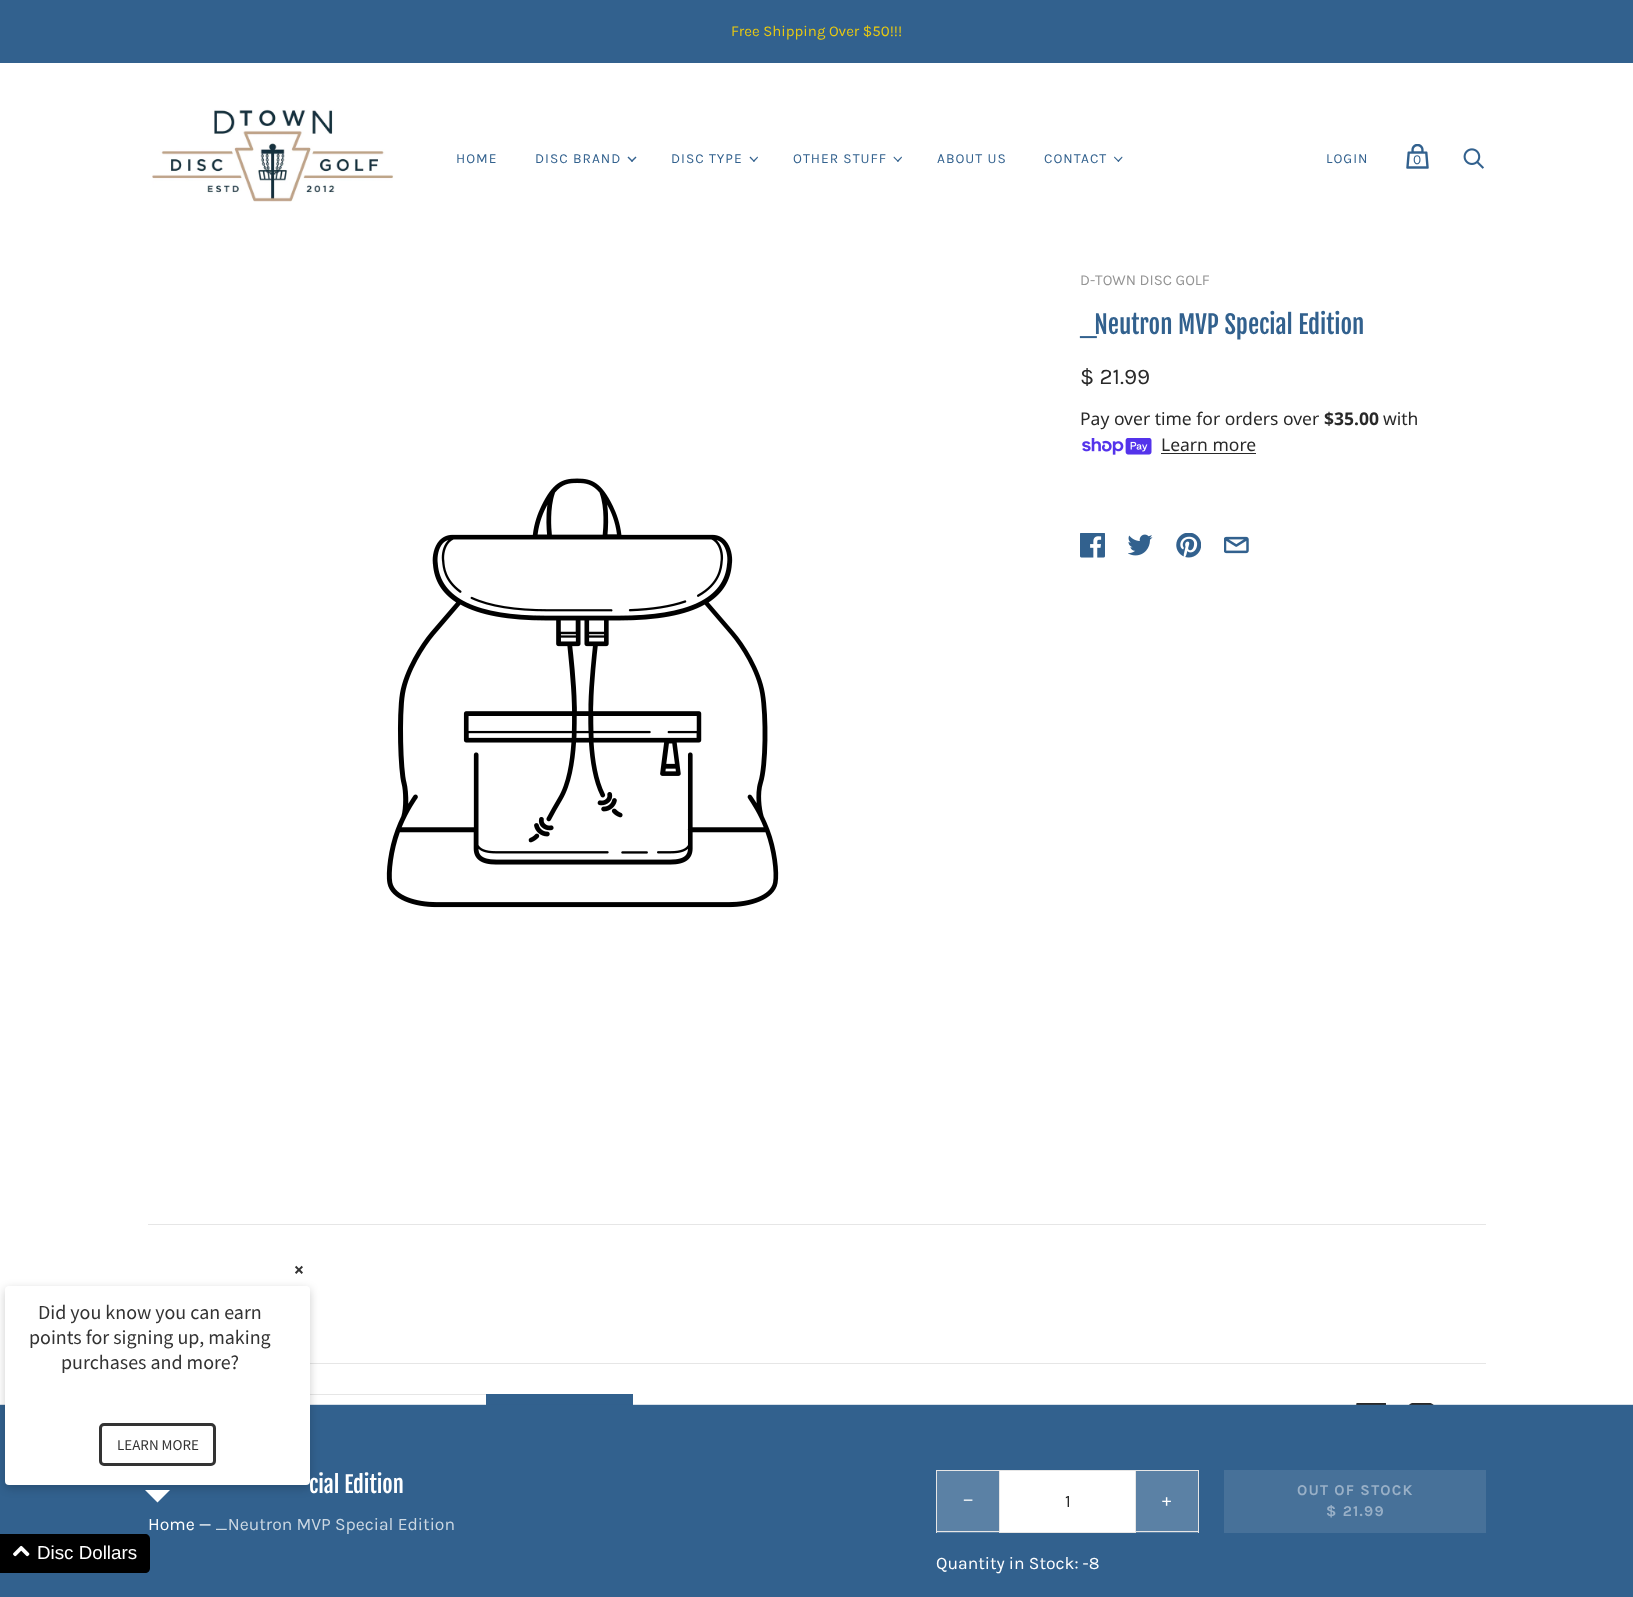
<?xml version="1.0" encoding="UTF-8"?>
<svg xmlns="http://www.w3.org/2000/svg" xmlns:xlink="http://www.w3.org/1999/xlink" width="1633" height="1597">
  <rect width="100%" height="100%" fill="#ffffff" />
  <rect width="1633" height="63" fill="#32618e" />
  <image x="152" y="109" width="242" height="93" xlink:href="image1.png" />
  <path d="M 631 161 l 4.5 -4.5 l 1 1 l -4.5 4.5 z" fill="#32618e" />
  <path d="M 627.5 157.5 l 1 -1 l 4.5 4.5 l -1 1 z" fill="#32618e" />
  <path d="M 753 161 l 4.5 -4.5 l 0.5 1 l -4 4.5 z" fill="#32618e" />
  <path d="M 749.5 157.5 l 1 -1 l 4 4.5 l -0.5 1 z" fill="#32618e" />
  <path d="M 897 161 l 4.5 -4.5 l 0.5 1 l -4 4.5 z" fill="#32618e" />
  <path d="M 893.5 157.5 l 0.5 -1 l 4.5 4.5 l -0.5 1 z" fill="#32618e" />
  <path d="M 1117.5 161 l 4.5 -4.5 l 0.5 1 l -4 4.5 z" fill="#32618e" />
  <path d="M 1114 157.5 l 0.5 -1 l 4.5 4.5 l -0.5 1 z" fill="#32618e" />
  <image x="1406" y="144" width="23" height="25" xlink:href="image2.png" />
  <image x="1463" y="148" width="21" height="21" xlink:href="image3.png" />
  <image x="1082" y="438" width="70" height="17" xlink:href="image4.png" />
  <rect x="1161" y="453" width="95" height="1" fill="#292929" />
  <image x="1080" y="533" width="25" height="25" xlink:href="image5.png" />
  <image x="1128" y="534" width="25" height="22" xlink:href="image6.png" />
  <image x="1176" y="533" width="25" height="25" xlink:href="image7.png" />
  <image x="1224" y="536" width="25" height="18" xlink:href="image8.png" />
  <image x="386" y="478" width="393" height="430" xlink:href="image9.png" />
  <rect x="486" y="1394" width="147" height="11" fill="#32618e" />
  <image x="1356" y="1403" width="30" height="2" xlink:href="image11.png" />
  <image x="1409" y="1403" width="25" height="2" xlink:href="image12.png" />
  <rect y="1404" width="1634" height="192" fill="#32618e" fill-opacity="0.2" filter="blur(0.5px)" />
  <rect y="1405" width="1633" height="192" fill="#32618e" />
  <rect x="937" y="1471" width="62" height="62" fill="#5b81a5" />
  <rect x="936" y="1470" width="63" height="1" fill="#e6e6e6" />
  <rect x="936" y="1531" width="63" height="1" fill="#e6e6e6" />
  <rect x="936" y="1470" width="1" height="63" fill="#e6e6e6" />
  <rect x="999.5" y="1470.5" width="136" height="62" fill="#ffffff" stroke="#e6e6e6" />
  <rect x="1136" y="1471" width="62" height="62" fill="#5b81a5" />
  <rect x="1136" y="1470" width="63" height="1" fill="#e6e6e6" />
  <rect x="1198" y="1470" width="1" height="63" fill="#e6e6e6" />
  <rect x="1136" y="1531" width="63" height="1" fill="#e6e6e6" />
  <rect x="1224" y="1470" width="262" height="63" fill="#477199" />
  <rect x="148" y="1224" width="1338" height="1" fill="#e6e6e6" />
  <rect x="310" y="1363" width="1176" height="1" fill="#e6e6e6" />
  <rect x="310" y="1394" width="176" height="1" fill="#e6e6e6" />
  <rect x="5" y="1289" width="305" height="199" rx="4" fill="#000000" fill-opacity="0.2" filter="blur(5px)" />
  <rect x="5" y="1286" width="305" height="199" rx="4" fill="#ffffff" />
  <rect x="100.5" y="1424.5" width="114" height="40" rx="3.5" fill="none" stroke="#333333" stroke-width="3" />
  <path d="M 145 1490 h 25 l -12.5 12.5 z" fill="#ffffff" />
  <path d="M 0 1534 h 145 c 3 0 5 2 5 5 v 29 c 0 3 -2 5 -5 5 h -145 z" fill="#000000" />
  <image x="13" y="1545" width="17" height="12" xlink:href="image10.png" />
  <text x="731" y="36" style="font-family: Karla; font-size: 15px; fill: #e9c911">Free Shipping Over $50!!!</text>
  <text x="456" y="163" style="font-family: Karla; font-size: 13.75px; letter-spacing: 1px; fill: #32618e">HOME</text>
  <text x="535" y="163" style="font-family: Karla; font-size: 13.75px; letter-spacing: 1px; fill: #32618e">DISC BRAND</text>
  <text x="671" y="163" style="font-family: Karla; font-size: 13.75px; letter-spacing: 1px; fill: #32618e">DISC TYPE</text>
  <text x="793" y="163" style="font-family: Karla; font-size: 13.75px; letter-spacing: 1px; fill: #32618e">OTHER STUFF</text>
  <text x="937" y="163" style="font-family: Karla; font-size: 13.75px; letter-spacing: 1px; fill: #32618e">ABOUT US</text>
  <text x="1044" y="163" style="font-family: Karla; font-size: 13.75px; letter-spacing: 1px; fill: #32618e">CONTACT</text>
  <text x="1326" y="163" style="font-family: Karla; font-size: 13.75px; letter-spacing: 1px; fill: #32618e">LOGIN</text>
  <text x="1413" y="164" style="font-family: Karla; font-size: 13.75px; fill: #32618e">0</text>
  <text x="1080" y="285" style="font-family: Karla; font-size: 15px; fill: #949494">D-TOWN DISC GOLF</text>
  <text x="1080" y="334" style="font-family: Fjalla One; font-size: 25px; fill: #32618e">_Neutron MVP Special Edition</text>
  <text x="1080" y="384" style="font-family: Karla; font-size: 22.5px; fill: #292929">$ 21.99</text>
  <text x="1080" y="425" style="font-family: Noto Sans; font-size: 17.5px; fill: #292929">Pay over time for orders over</text>
  <text x="1324" y="425" style="font-family: Noto Sans; font-size: 17.5px; font-weight: bold; fill: #292929">$35.00</text>
  <text x="1383" y="425" style="font-family: Noto Sans; font-size: 17.5px; fill: #292929">with</text>
  <text x="1161" y="451" style="font-family: Noto Sans; font-size: 17.5px; fill: #292929">Learn more</text>
  <text x="309" y="1493" style="font-family: Fjalla One; font-size: 22.5px; fill: #ffffff">cial Edition</text>
  <text x="148" y="1530" style="font-family: Karla; font-size: 17.5px; fill: #ffffff">Home —</text>
  <text x="215" y="1530" style="font-family: Karla; font-size: 17.5px; fill: #ccd8e3">_Neutron MVP Special Edition</text>
  <text x="963" y="1506" style="font-family: Liberation Sans; font-size: 17.5px; fill: #ffffff">−</text>
  <text x="1065" y="1507" style="font-family: Karla; font-size: 17.5px; fill: #292929">1</text>
  <text x="1162" y="1506" style="font-family: Karla; font-size: 17.5px; fill: #ffffff">+</text>
  <text x="936" y="1569" style="font-family: Karla; font-size: 17.5px; fill: #ffffff">Quantity in Stock: -8</text>
  <text x="1297" y="1495" style="font-family: Karla; font-size: 15px; font-weight: bold; letter-spacing: 1.25px; fill: #99b0c7">OUT OF STOCK</text>
  <text x="1326" y="1516" style="font-family: Karla; font-size: 15px; font-weight: bold; letter-spacing: 1.25px; fill: #99b0c7">$ 21.99</text>
  <text x="294" y="1276" style="font-family: Source Sans Pro; font-size: 18.75px; font-weight: bold; fill: #333333">×</text>
  <text x="38" y="1319" style="font-family: Source Sans Pro; font-size: 20px; fill: #333333">Did you know you can earn</text>
  <text x="29" y="1344" style="font-family: Source Sans Pro; font-size: 20px; fill: #333333">points for signing up, making</text>
  <text x="61" y="1369" style="font-family: Source Sans Pro; font-size: 20px; fill: #333333">purchases and more?</text>
  <text x="117" y="1450" style="font-family: Source Sans Pro; font-size: 15px; fill: #333333">LEARN MORE</text>
  <text x="37" y="1559" style="font-family: Liberation Sans; font-size: 18.75px; fill: #ffffff">Disc Dollars</text>
</svg>
